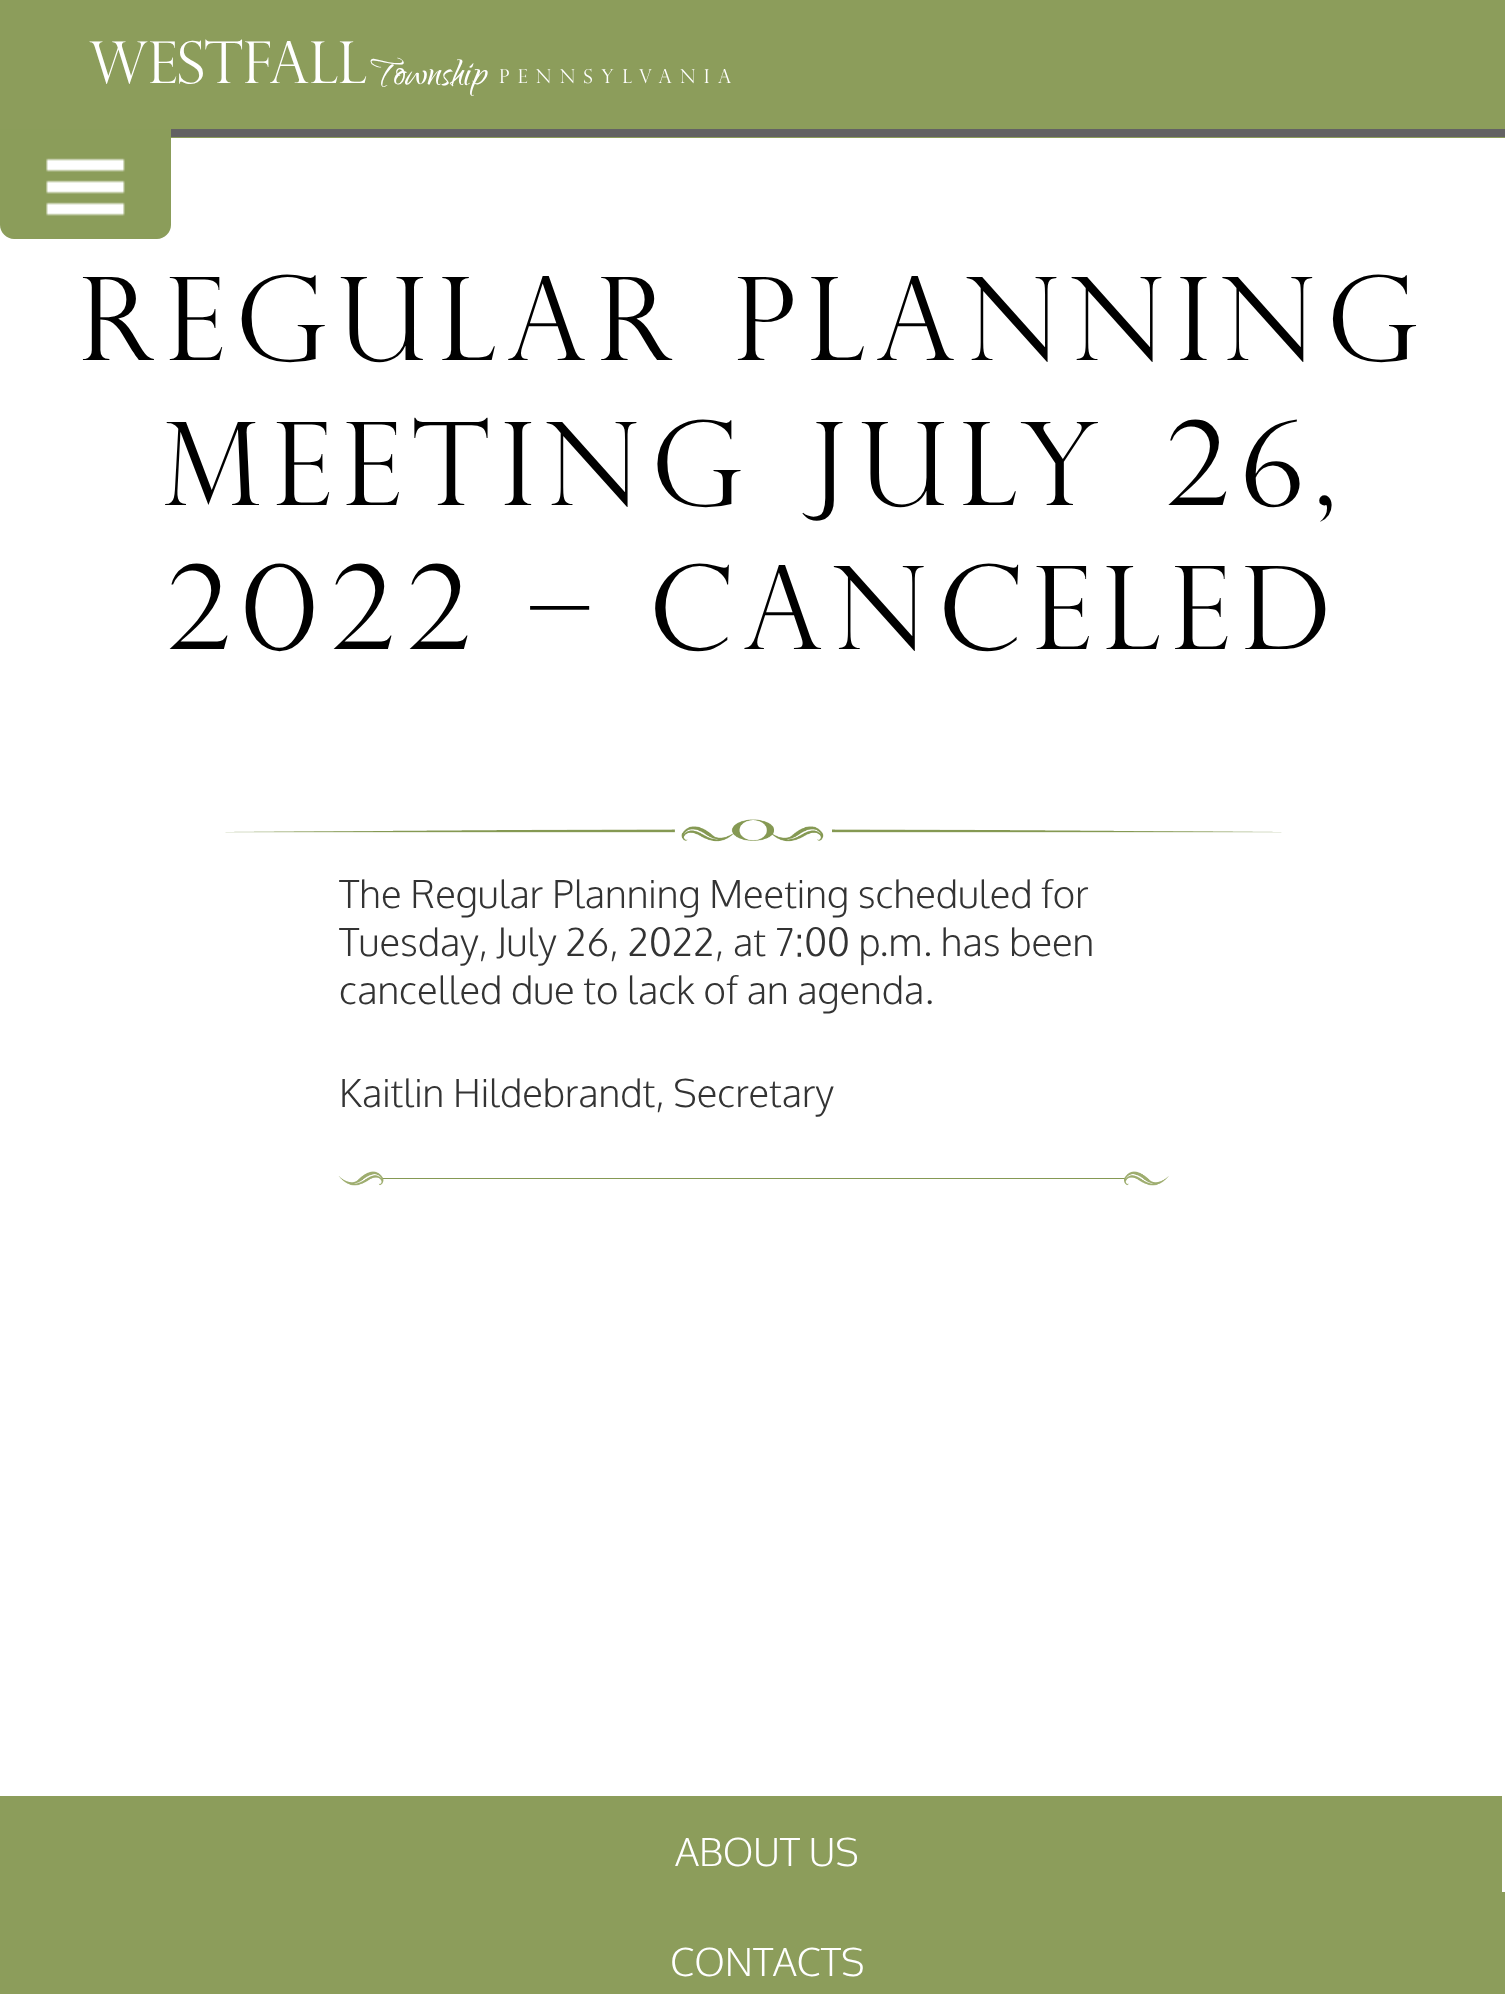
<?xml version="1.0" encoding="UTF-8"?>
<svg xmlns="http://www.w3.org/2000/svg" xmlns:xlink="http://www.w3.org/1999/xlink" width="1505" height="1994">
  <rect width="100%" height="100%" fill="#ffffff" />
  <rect width="1505" height="138" fill="#8c9d5b" />
  <rect x="171" y="129" width="1334" height="8" fill="#636263" />
  <path d="M 0 129 h 171 v 96 c 0 7.5 -6.5 14 -14 14 h -143 c -7.5 0 -14 -6.5 -14 -14 z" fill="#8b9d5a" />
  <image x="46" y="158" width="79" height="58" xlink:href="image1.png" />
  <image x="225" y="819" width="1057" height="23" xlink:href="image2.png" />
  <image x="338" y="1171" width="831" height="15" xlink:href="image3.png" />
  <rect y="1796" width="1505" height="198" fill="#8c9d5b" />
  <rect x="1502" y="1796" width="3" height="96" fill="#ffffff" />
  <text x="89" y="83" style="font-family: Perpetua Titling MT; font-size: 57.75px; font-weight: 300; fill: #ffffff">WESTFALL</text>
  <text x="370" y="83" style="font-family: Qwigley; font-size: 48px; fill: #ffffff">Township</text>
  <text x="499" y="83" style="font-family: Perpetua Titling MT; font-size: 19.25px; font-weight: 300; letter-spacing: 8.25px; fill: #ffffff">PENNSYLVANIA</text>
  <text x="79" y="360" style="font-family: Perpetua Titling MT; font-size: 115.5px; font-weight: 300; letter-spacing: 11px; fill: #000000">Regular Planning</text>
  <text x="163" y="505" word-spacing="4" style="font-family: Perpetua Titling MT; font-size: 115.5px; font-weight: 300; letter-spacing: 11px; fill: #000000">Meeting July 26,</text>
  <text x="165" y="649" style="font-family: Perpetua Titling MT; font-size: 115.5px; font-weight: 300; letter-spacing: 11px; fill: #000000">2022 – Canceled</text>
  <text x="339" y="908" style="font-family: Oxygen; font-size: 38.5px; font-weight: 300; fill: #333333">The Regular Planning Meeting scheduled for</text>
  <text x="339" y="956" style="font-family: Oxygen; font-size: 38.5px; font-weight: 300; fill: #333333">Tuesday, July 26, 2022, at 7:00 p.m. has been</text>
  <text x="339" y="1004" style="font-family: Oxygen; font-size: 38.5px; font-weight: 300; fill: #333333">cancelled due to lack of an agenda.</text>
  <text x="339" y="1107" style="font-family: Oxygen; font-size: 38.5px; font-weight: 300; fill: #333333">Kaitlin Hildebrandt, Secretary</text>
  <text x="675" y="1866" style="font-family: Oxygen; font-size: 38.5px; font-weight: 300; fill: #ffffff">ABOUT US</text>
  <text x="670" y="1976" style="font-family: Oxygen; font-size: 38.5px; font-weight: 300; fill: #ffffff">CONTACTS</text>
</svg>
